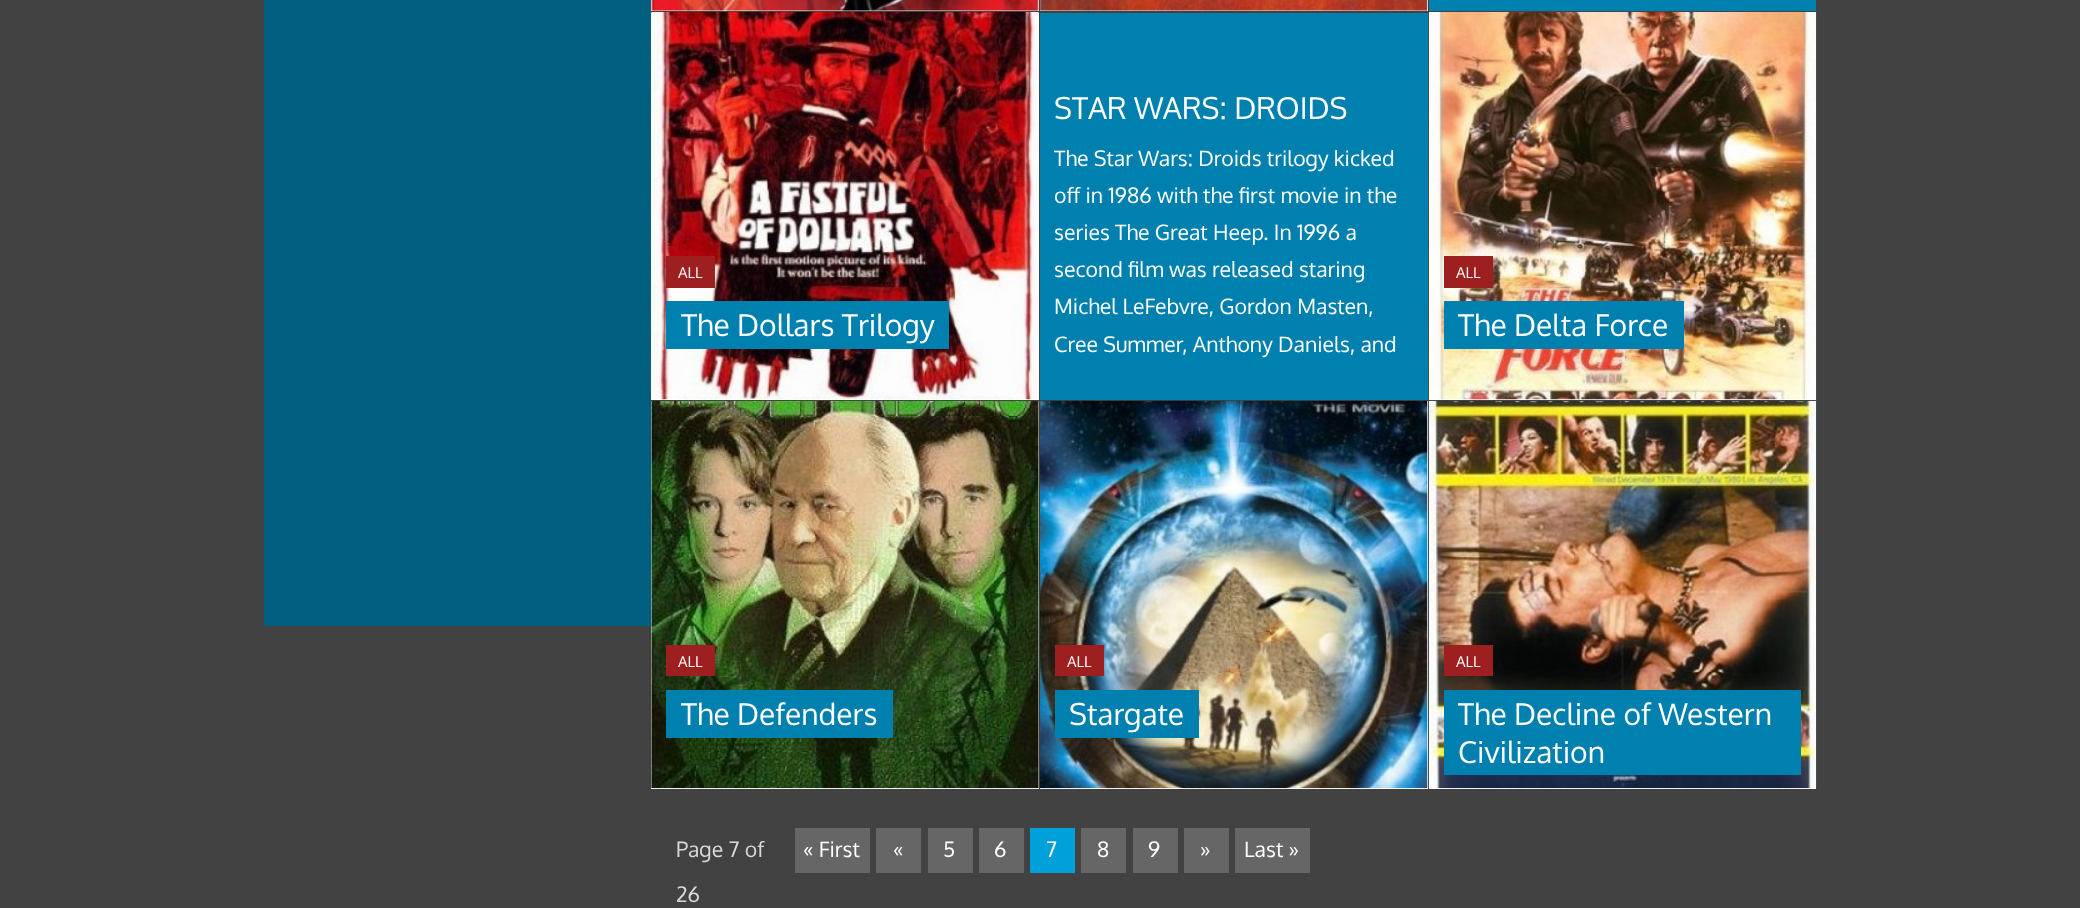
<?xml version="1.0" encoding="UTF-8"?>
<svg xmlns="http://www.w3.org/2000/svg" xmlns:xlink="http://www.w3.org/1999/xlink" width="2080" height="908">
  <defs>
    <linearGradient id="g1" gradientUnits="userSpaceOnUse" x1="1623" y1="-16" x2="1623" y2="11"><stop offset="0" stop-color="#0080af" stop-opacity="0" /><stop offset="0.01" stop-color="#0080af" stop-opacity="0.01" /><stop offset="0.5" stop-color="#0080af" /></linearGradient>
    <linearGradient id="g2" gradientUnits="userSpaceOnUse" x1="1234" y1="373" x2="1234" y2="400"><stop offset="0" stop-color="#0080af" stop-opacity="0" /><stop offset="0.01" stop-color="#0080af" stop-opacity="0.01" /><stop offset="0.5" stop-color="#0080af" /></linearGradient>
  </defs>
  <rect width="100%" height="100%" fill="#424242" />
  <rect x="264" width="387" height="626" fill="#005e7f" />
  <rect x="651" width="388" height="11" fill="#ffffff" />
  <image x="651" y="0" width="388" height="11" xlink:href="image1.png" />
  <rect x="1040" width="388" height="11" fill="#ffffff" />
  <image x="1040" y="0" width="388" height="11" xlink:href="image2.png" />
  <rect x="1429" width="387" height="11" fill="url(#g1)" />
  <rect x="651" y="13" width="388" height="387" fill="#ffffff" />
  <image x="651" y="12" width="388" height="388" xlink:href="image3.png" />
  <rect x="666" y="256" width="49" height="32" fill="#9e1f1f" />
  <rect x="666" y="301" width="283" height="48" fill="#0080af" />
  <rect x="1040" y="13" width="388" height="373" fill="#0080af" />
  <rect x="1040" y="386" width="388" height="14" fill="url(#g2)" />
  <rect x="1429" y="399" width="387" height="1" fill="#ffffff" />
  <image x="1428" y="12" width="389" height="388" xlink:href="image4.png" />
  <rect x="1444" y="256" width="49" height="32" fill="#9e1f1f" />
  <rect x="1444" y="301" width="240" height="48" fill="#0080af" />
  <rect x="651" y="401" width="388" height="388" fill="#ffffff" />
  <image x="651" y="400" width="388" height="389" xlink:href="image5.png" />
  <rect x="666" y="645" width="49" height="31" fill="#9e1f1f" />
  <rect x="666" y="690" width="227" height="48" fill="#0080af" />
  <rect x="1040" y="401" width="388" height="388" fill="#ffffff" />
  <image x="1040" y="400" width="388" height="389" xlink:href="image6.png" />
  <rect x="1055" y="645" width="49" height="31" fill="#9e1f1f" />
  <rect x="1055" y="690" width="144" height="48" fill="#0080af" />
  <rect x="1429" y="788" width="387" height="1" fill="#ffffff" />
  <image x="1428" y="400" width="389" height="389" xlink:href="image7.png" />
  <rect x="1444" y="645" width="49" height="31" fill="#9e1f1f" />
  <rect x="1444" y="690" width="357" height="85" fill="#0080af" />
  <rect x="795" y="828" width="75" height="45" fill="#666666" />
  <rect x="876" y="828" width="45" height="45" fill="#666666" />
  <rect x="928" y="828" width="45" height="45" fill="#666666" />
  <rect x="979" y="828" width="45" height="45" fill="#666666" />
  <rect x="1030" y="828" width="45" height="45" fill="#00a0db" />
  <rect x="1081" y="828" width="45" height="45" fill="#666666" />
  <rect x="1133" y="828" width="45" height="45" fill="#666666" />
  <rect x="1184" y="828" width="45" height="45" fill="#666666" />
  <rect x="1235" y="828" width="75" height="45" fill="#666666" />
  <text x="678" y="278" style="font-family: Oxygen; font-size: 15px; fill: #ffffff">ALL</text>
  <text x="681" y="336" style="font-family: Oxygen; font-size: 30px; fill: #ffffff">The Dollars Trilogy</text>
  <text x="1054" y="119" style="font-family: Oxygen; font-size: 30px; fill: #ffffff">STAR WARS: DROIDS</text>
  <text x="1054" y="166" style="font-family: Oxygen; font-size: 21.25px; fill: #ffffff">The Star Wars: Droids trilogy kicked</text>
  <text x="1054" y="203" style="font-family: Oxygen; font-size: 21.25px; fill: #ffffff">off in 1986 with the first movie in the</text>
  <text x="1054" y="240" style="font-family: Oxygen; font-size: 21.25px; fill: #ffffff">series The Great Heep. In 1996 a</text>
  <text x="1054" y="277" style="font-family: Oxygen; font-size: 21.25px; fill: #ffffff">second film was released staring</text>
  <text x="1054" y="314" style="font-family: Oxygen; font-size: 21.25px; fill: #ffffff">Michel LeFebvre, Gordon Masten,</text>
  <text x="1054" y="352" style="font-family: Oxygen; font-size: 21.25px; fill: #ffffff">Cree Summer, Anthony Daniels, and</text>
  <text x="1456" y="278" style="font-family: Oxygen; font-size: 15px; fill: #ffffff">ALL</text>
  <text x="1458" y="336" style="font-family: Oxygen; font-size: 30px; fill: #ffffff">The Delta Force</text>
  <text x="678" y="667" style="font-family: Oxygen; font-size: 15px; fill: #ffffff">ALL</text>
  <text x="681" y="725" style="font-family: Oxygen; font-size: 30px; fill: #ffffff">The Defenders</text>
  <text x="1067" y="667" style="font-family: Oxygen; font-size: 15px; fill: #ffffff">ALL</text>
  <text x="1069" y="725" style="font-family: Oxygen; font-size: 30px; fill: #ffffff">Stargate</text>
  <text x="1456" y="667" style="font-family: Oxygen; font-size: 15px; fill: #ffffff">ALL</text>
  <text x="1458" y="725" style="font-family: Oxygen; font-size: 30px; fill: #ffffff">The Decline of Western</text>
  <text x="1458" y="763" style="font-family: Oxygen; font-size: 30px; fill: #ffffff">Civilization</text>
  <text x="676" y="857" style="font-family: Oxygen; font-size: 21.25px; fill: #d9d9d9">Page 7 of</text>
  <text x="676" y="902" style="font-family: Oxygen; font-size: 21.25px; fill: #d9d9d9">26</text>
  <text x="803" y="857" style="font-family: Oxygen; font-size: 21.25px; fill: #ffffff">« First</text>
  <text x="893" y="857" style="font-family: Oxygen; font-size: 21.25px; fill: #ffffff">«</text>
  <text x="943" y="857" style="font-family: Oxygen; font-size: 21.25px; fill: #ffffff">5</text>
  <text x="994" y="857" style="font-family: Oxygen; font-size: 21.25px; fill: #ffffff">6</text>
  <text x="1046" y="857" style="font-family: Oxygen; font-size: 21.25px; fill: #ffffff">7</text>
  <text x="1097" y="857" style="font-family: Oxygen; font-size: 21.25px; fill: #ffffff">8</text>
  <text x="1148" y="857" style="font-family: Oxygen; font-size: 21.25px; fill: #ffffff">9</text>
  <text x="1200" y="857" style="font-family: Oxygen; font-size: 21.25px; fill: #ffffff">»</text>
  <text x="1244" y="857" style="font-family: Oxygen; font-size: 21.25px; fill: #ffffff">Last »</text>
</svg>
